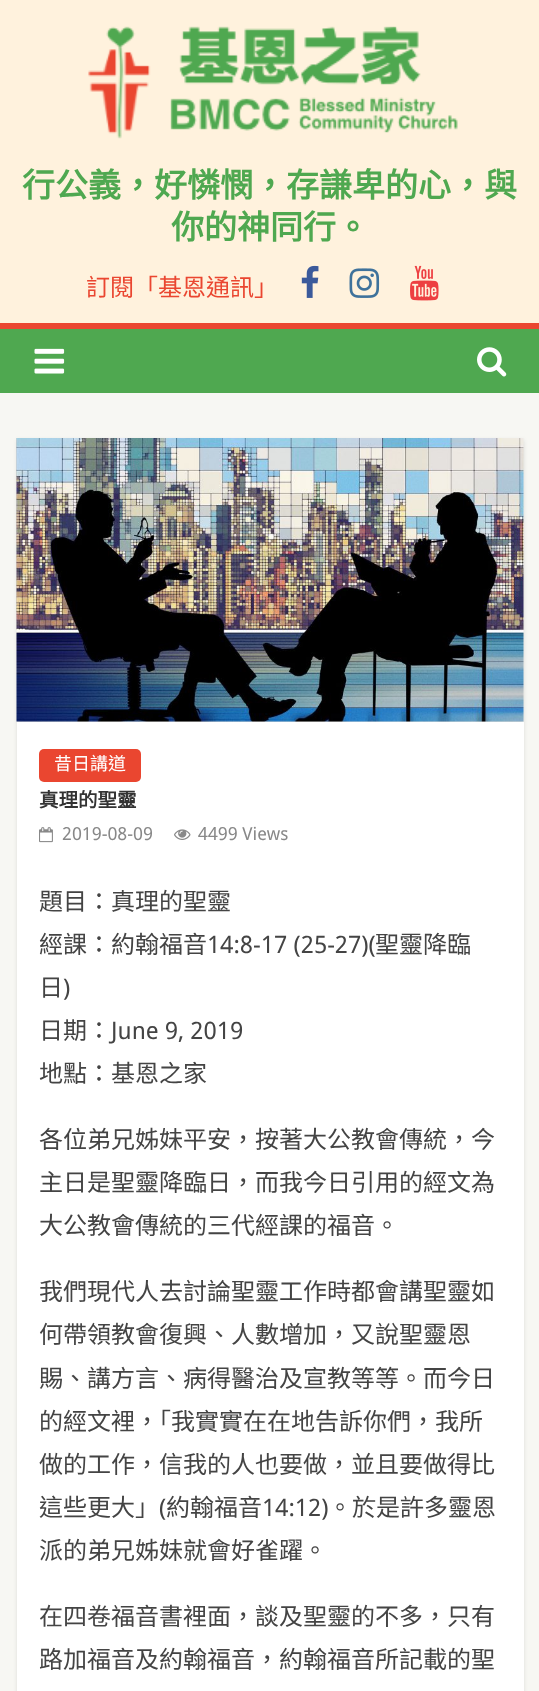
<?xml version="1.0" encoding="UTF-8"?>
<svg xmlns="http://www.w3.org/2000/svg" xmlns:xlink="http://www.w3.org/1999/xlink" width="539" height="1691">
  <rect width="100%" height="100%" fill="#fff2dd" />
  <image x="88" y="26" width="370" height="113" xlink:href="image1.png" />
  <image x="301" y="265" width="18" height="33" xlink:href="image2.png" />
  <image x="349" y="268" width="31" height="30" xlink:href="image3.png" />
  <image x="410" y="265" width="29" height="36" xlink:href="image4.png" />
  <rect y="329" width="539" height="64" fill="#4fa850" />
  <rect y="323" width="539" height="6" fill="#ea4630" />
  <image x="34" y="348" width="31" height="26" xlink:href="image5.png" />
  <image x="477" y="347" width="30" height="30" xlink:href="image6.png" />
  <rect y="393" width="539" height="1298" fill="#f7f7f3" />
  <rect x="17" y="440" width="507" height="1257" fill="#000000" fill-opacity="0.1" filter="blur(2px)" />
  <image x="16" y="438" width="508" height="284" xlink:href="image7.png" />
  <rect x="17" y="722" width="507" height="969" fill="#ffffff" />
  <rect x="39" y="749" width="102" height="33" rx="5" fill="#ea4630" />
  <image x="39" y="827" width="14" height="16" xlink:href="image8.png" />
  <image x="174" y="829" width="17" height="11" xlink:href="image9.png" />
  <text x="22" y="197" style="font-family: Noto Sans CJK HK; font-size: 33px; font-weight: bold; fill: #4fa850">行公義，好憐憫，存謙卑的心，與</text>
  <text x="171" y="239" style="font-family: Noto Sans CJK HK; font-size: 33px; font-weight: bold; fill: #4fa850">你的神同行。</text>
  <text x="86" y="296" style="font-family: Noto Sans CJK HK; font-size: 24px; fill: #ea4630">訂閱「基恩通訊」</text>
  <text x="54" y="770" style="font-family: Noto Sans CJK HK; font-size: 18px; fill: #ffffff">昔日講道</text>
  <text x="39" y="807" style="font-family: Noto Sans CJK HK; font-size: 19.5px; font-weight: bold; fill: #333333">真理的聖靈</text>
  <text x="62" y="840" style="font-family: Droid Sans; font-size: 18px; fill: #888888">2019-08-09</text>
  <text x="198" y="840" style="font-family: Droid Sans; font-size: 18px; fill: #888888">4499 Views</text>
  <text x="39" y="910" style="font-family: Noto Sans CJK HK; font-size: 24px; fill: #444444">題目：真理的聖靈</text>
  <text x="39" y="953" style="font-family: Noto Sans CJK HK; font-size: 24px; fill: #444444">經課：約翰福音</text>
  <text x="207" y="953" style="font-family: Droid Sans; font-size: 24px; fill: #444444">14:8-17 (25-27)(</text>
  <text x="375" y="953" style="font-family: Noto Sans CJK HK; font-size: 24px; fill: #444444">聖靈降臨</text>
  <text x="39" y="996" style="font-family: Noto Sans CJK HK; font-size: 24px; fill: #444444">日</text>
  <text x="63" y="996" style="font-family: Droid Sans; font-size: 24px; fill: #444444">)</text>
  <text x="39" y="1039" style="font-family: Noto Sans CJK HK; font-size: 24px; fill: #444444">日期：</text>
  <text x="111" y="1039" style="font-family: Droid Sans; font-size: 24px; fill: #444444">June 9, 2019</text>
  <text x="39" y="1082" style="font-family: Noto Sans CJK HK; font-size: 24px; fill: #444444">地點：基恩之家</text>
  <text x="39" y="1148" style="font-family: Noto Sans CJK HK; font-size: 24px; fill: #444444">各位弟兄姊妹平安，按著大公教會傳統，今</text>
  <text x="39" y="1191" style="font-family: Noto Sans CJK HK; font-size: 24px; fill: #444444">主日是聖靈降臨日，而我今日引用的經文為</text>
  <text x="39" y="1234" style="font-family: Noto Sans CJK HK; font-size: 24px; fill: #444444">大公教會傳統的三代經課的福音。</text>
  <text x="39" y="1300" style="font-family: Noto Sans CJK HK; font-size: 24px; fill: #444444">我們現代人去討論聖靈工作時都會講聖靈如</text>
  <text x="39" y="1343" style="font-family: Noto Sans CJK HK; font-size: 24px; fill: #444444">何帶領教會復興、人數增加，又說聖靈恩</text>
  <text x="39" y="1387" style="font-family: Noto Sans CJK HK; font-size: 24px; fill: #444444">賜、講方言、病得醫治及宣教等等。而今日</text>
  <text x="39" y="1430" style="font-family: Noto Sans CJK HK; font-size: 24px; fill: #444444">的經文裡，「我實實在在地告訴你們，我所</text>
  <text x="39" y="1473" style="font-family: Noto Sans CJK HK; font-size: 24px; fill: #444444">做的工作，信我的人也要做，並且要做得比</text>
  <text x="39" y="1516" style="font-family: Noto Sans CJK HK; font-size: 24px; fill: #444444">這些更大」</text>
  <text x="159" y="1516" style="font-family: Droid Sans; font-size: 24px; fill: #444444">(</text>
  <text x="166" y="1516" style="font-family: Noto Sans CJK HK; font-size: 24px; fill: #444444">約翰福音</text>
  <text x="262" y="1516" style="font-family: Droid Sans; font-size: 24px; fill: #444444">14:12)</text>
  <text x="328" y="1516" style="font-family: Noto Sans CJK HK; font-size: 24px; fill: #444444">。於是許多靈恩</text>
  <text x="39" y="1559" style="font-family: Noto Sans CJK HK; font-size: 24px; fill: #444444">派的弟兄姊妹就會好雀躍。</text>
  <text x="39" y="1625" style="font-family: Noto Sans CJK HK; font-size: 24px; fill: #444444">在四卷福音書裡面，談及聖靈的不多，只有</text>
  <text x="39" y="1668" style="font-family: Noto Sans CJK HK; font-size: 24px; fill: #444444">路加福音及約翰福音，約翰福音所記載的聖</text>
</svg>
